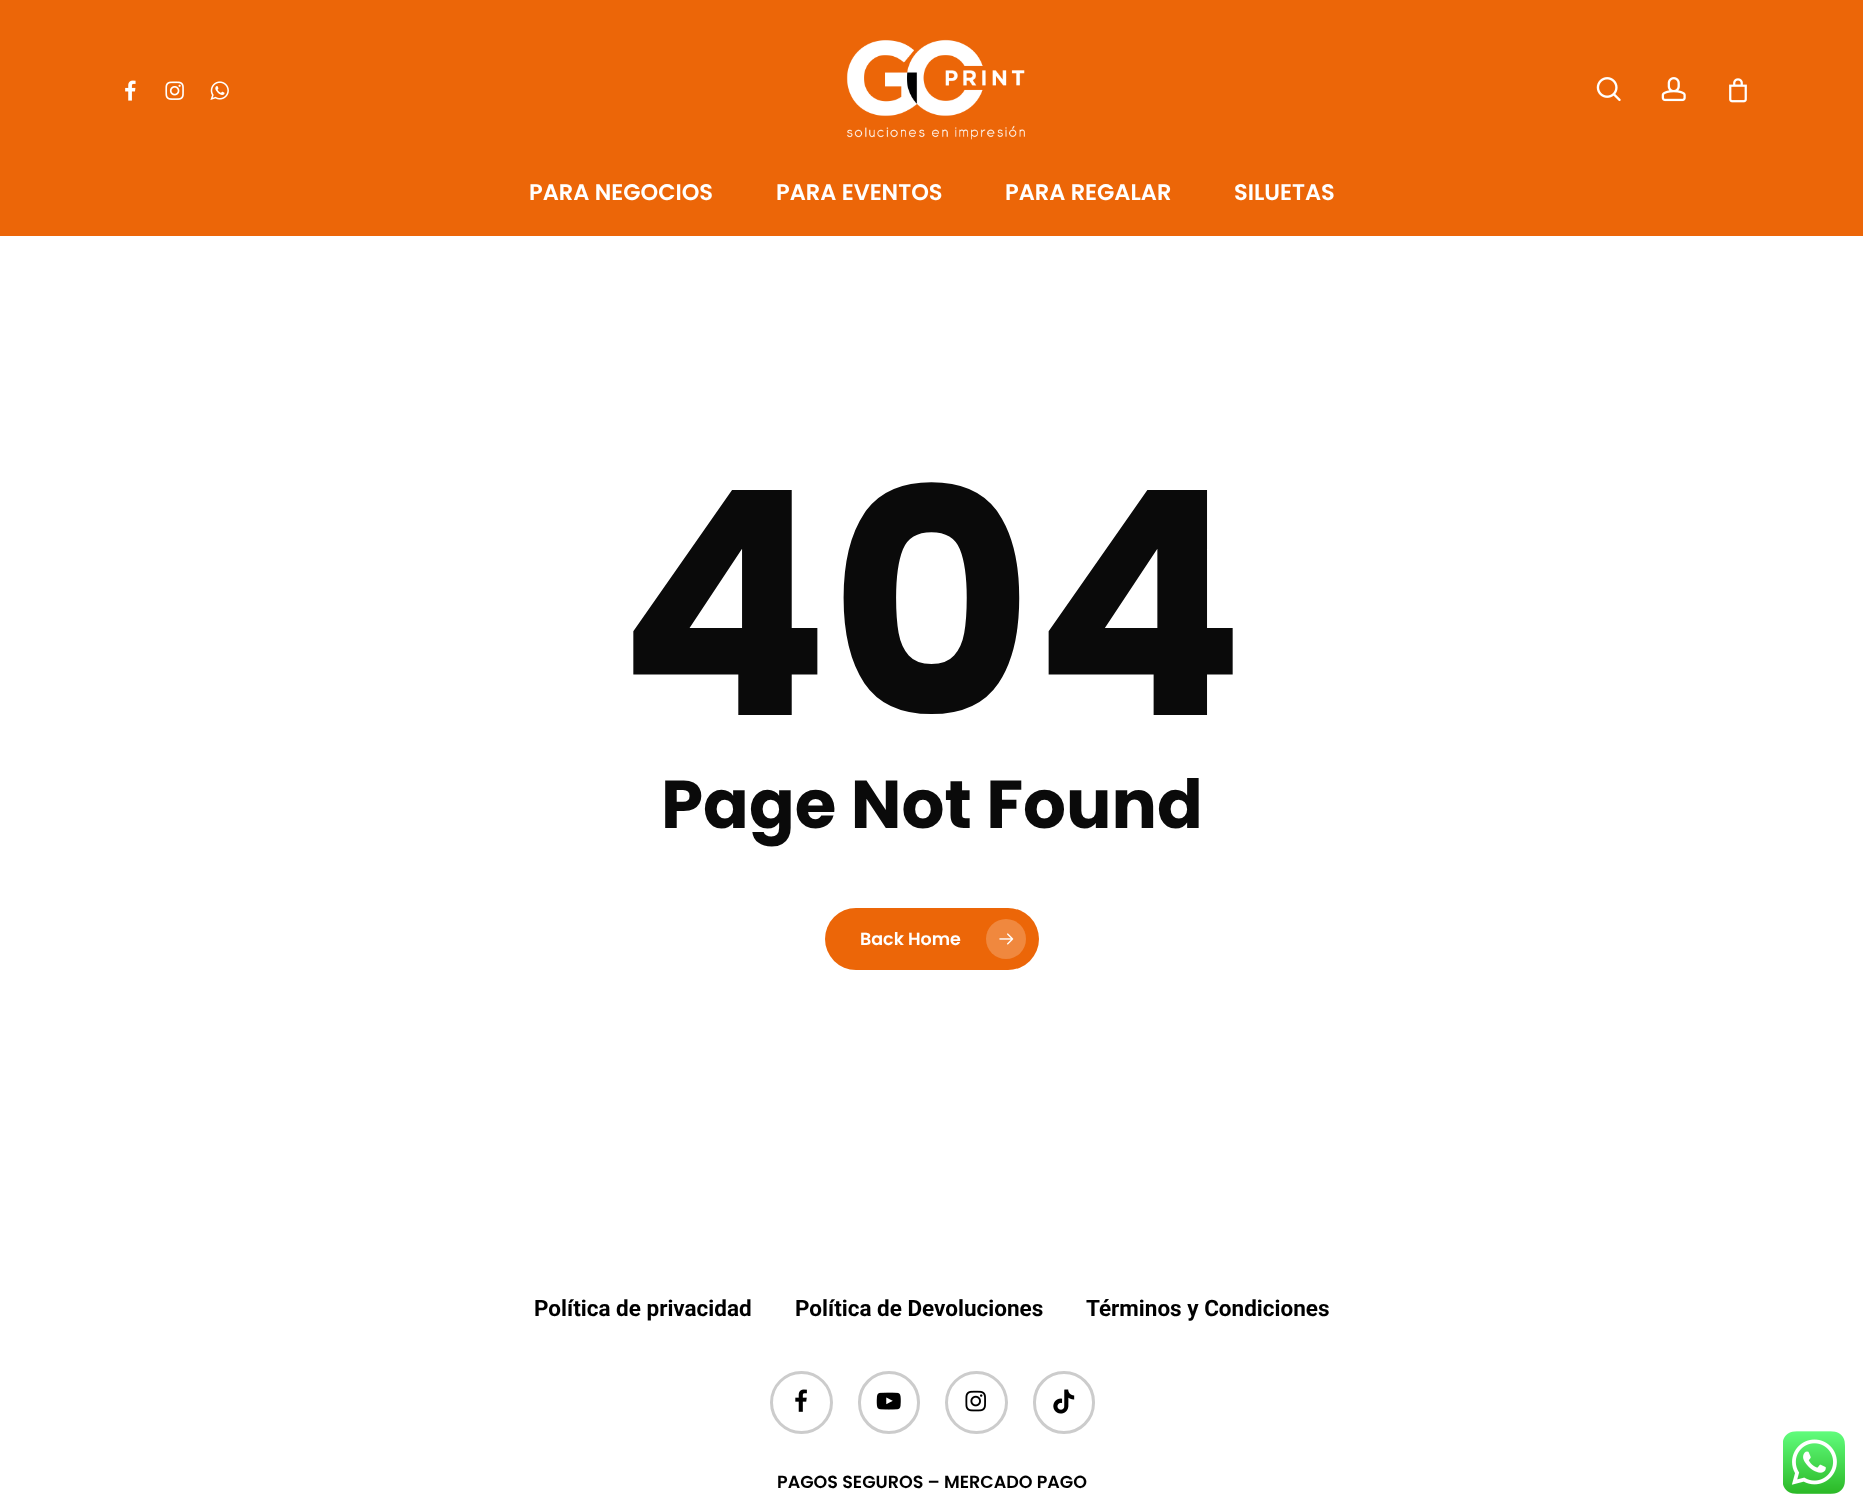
<?xml version="1.0" encoding="UTF-8"?>
<svg xmlns="http://www.w3.org/2000/svg" xmlns:xlink="http://www.w3.org/1999/xlink" width="1863" height="1512">
  <rect width="100%" height="100%" fill="#ffffff" />
  <rect width="1863" height="236" fill="#ec6608" />
  <image x="125" y="80" width="11" height="21" xlink:href="image1.png" />
  <image x="165" y="81" width="19" height="19" xlink:href="image2.png" />
  <image x="210" y="81" width="19" height="19" xlink:href="image3.png" />
  <image x="846" y="39" width="179" height="101" xlink:href="image4.png" />
  <image x="1596" y="77" width="25" height="25" xlink:href="image5.png" />
  <image x="1661" y="77" width="25" height="25" xlink:href="image6.png" />
  <image x="1729" y="78" width="18" height="25" xlink:href="image7.png" />
  <rect x="825" y="908" width="214" height="62" rx="31" fill="#ec6608" />
  <circle cx="1006" cy="939" r="20" fill="#f0883e" />
  <image x="999" y="933" width="15" height="12" xlink:href="image8.png" />
  <image x="795" y="1389" width="12" height="23" xlink:href="image9.png" />
  <circle cx="801.5" cy="1402.5" r="30" fill="none" stroke="#cccccc" stroke-width="3" />
  <image x="876" y="1392" width="25" height="18" xlink:href="image10.png" />
  <rect x="859.5" y="1372.5" width="59" height="60" rx="29.5" fill="none" stroke="#cccccc" stroke-width="3" />
  <image x="965" y="1390" width="21" height="22" xlink:href="image11.png" />
  <circle cx="976.5" cy="1402.5" r="30" fill="none" stroke="#cccccc" stroke-width="3" />
  <image x="1053" y="1389" width="22" height="25" xlink:href="image12.png" />
  <rect x="1034.5" y="1372.5" width="59" height="60" rx="29.5" fill="none" stroke="#cccccc" stroke-width="3" />
  <image x="1783" y="1431" width="62" height="63" xlink:href="image13.png" />
  <text x="529" y="200" style="font-family: Poppins; font-size: 22.5px; font-weight: 600; fill: #ffffff">PARA NEGOCIOS</text>
  <text x="776" y="200" style="font-family: Poppins; font-size: 22.5px; font-weight: 600; fill: #ffffff">PARA EVENTOS</text>
  <text x="1005" y="200" style="font-family: Poppins; font-size: 22.5px; font-weight: 600; fill: #ffffff">PARA REGALAR</text>
  <text x="1234" y="200" style="font-family: Poppins; font-size: 22.5px; font-weight: 600; fill: #ffffff">SILUETAS</text>
  <text x="618" y="715" style="font-family: Poppins; font-size: 312.5px; font-weight: bold; fill: #0a0a0a">404</text>
  <text x="661" y="828" style="font-family: Poppins; font-size: 67.5px; font-weight: bold; fill: #0a0a0a">Page Not Found</text>
  <text x="860" y="945" style="font-family: Poppins; font-size: 17.5px; font-weight: 600; fill: #ffffff">Back Home</text>
  <text x="534" y="1316" style="font-family: Roboto; font-size: 22.5px; font-weight: bold; fill: #000000">Política de privacidad</text>
  <text x="795" y="1316" style="font-family: Roboto; font-size: 22.5px; font-weight: bold; fill: #000000">Política de Devoluciones</text>
  <text x="1086" y="1316" style="font-family: Roboto; font-size: 22.5px; font-weight: bold; fill: #000000">Términos y Condiciones</text>
  <text x="777" y="1488" style="font-family: Poppins; font-size: 17.5px; font-weight: 600; fill: #000000">PAGOS SEGUROS – MERCADO PAGO</text>
</svg>
